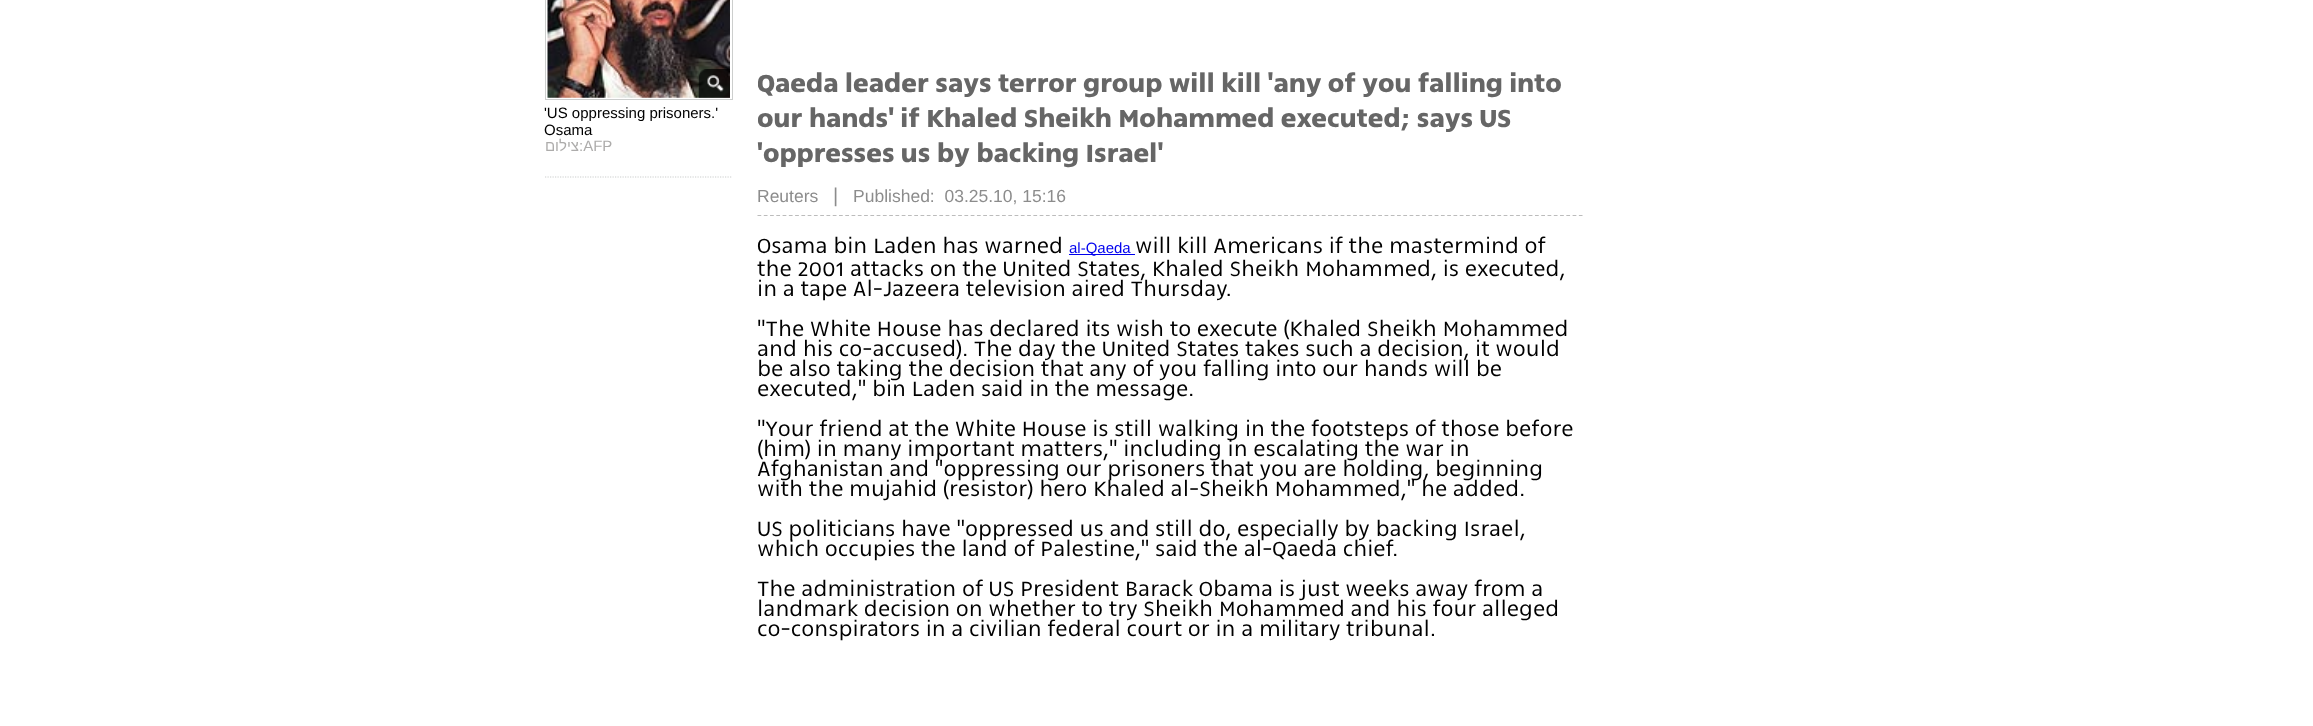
<?xml version="1.0" encoding="UTF-8"?>
<svg xmlns="http://www.w3.org/2000/svg" xmlns:xlink="http://www.w3.org/1999/xlink" width="2313" height="726">
  <defs>
    <clipPath id="clip1"><rect x="758" width="825" height="235" /></clipPath>
  </defs>
  <rect width="100%" height="100%" fill="#ffffff" />
  <rect x="545.5" y="-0.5" width="187" height="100" fill="none" stroke="#cccecd" />
  <image x="547" y="0" width="183" height="98" xlink:href="image1.png" />
  <image x="698" y="69" width="32" height="29" xlink:href="image2.png" />
  <path d="M 545 177 h 187.5" fill="none" stroke="#cccecd" stroke-width="1.2" stroke-dasharray="1.25 1.25" />
  <path d="M 757.5 215.5 h 825" fill="none" stroke="#bcbcbc" stroke-width="1.2" stroke-dasharray="3.75 2.52" />
  <rect x="1069" y="254" width="66" height="1" fill="#0000ee" />
  <text x="544" y="118" style="font-family: Liberation Sans; font-size: 15px; fill: #000000">'US oppressing prisoners.'</text>
  <text x="544" y="135" style="font-family: Liberation Sans; font-size: 15px; fill: #000000">Osama</text>
  <text x="579" y="151" style="font-family: Liberation Sans; font-size: 15px; direction: rtl; fill: #adacab">צילום</text>
  <text x="579" y="151" style="font-family: Liberation Sans; font-size: 15px; fill: #adacab">:AFP</text>
  <g clip-path="url(#clip1)">
    <text x="757" y="92" style="font-family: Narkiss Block; font-size: 30px; font-weight: bold; fill: #666666">Qaeda leader says terror group will kill 'any of you falling into</text>
    <text x="757" y="127" style="font-family: Narkiss Block; font-size: 30px; font-weight: bold; fill: #666666">our hands' if Khaled Sheikh Mohammed executed; says US</text>
  </g>
  <text x="757" y="162" style="font-family: Narkiss Block; font-size: 30px; font-weight: bold; fill: #666666">'oppresses us by backing Israel'</text>
  <text x="757" y="202" style="font-family: Liberation Sans; font-size: 17.5px; fill: #8c8c8c">Reuters</text>
  <text x="833" y="202" style="font-family: Liberation Sans; font-size: 20px; fill: #8c8c8c">|</text>
  <text x="853" y="202" style="font-family: Liberation Sans; font-size: 17.5px; fill: #8c8c8c" xml:space="preserve">Published:  03.25.10, 15:16</text>
  <text x="757" y="253" style="font-family: Narkiss Block; font-size: 25px; font-weight: 300; fill: #000000">Osama bin Laden has warned</text>
  <text x="1069" y="253" style="font-family: Liberation Sans; font-size: 15px; fill: #0000ee">al-Qaeda</text>
  <text x="1135" y="253" style="font-family: Narkiss Block; font-size: 25px; font-weight: 300; fill: #000000">will kill Americans if the mastermind of</text>
  <text x="757" y="276" style="font-family: Narkiss Block; font-size: 25px; font-weight: 300; fill: #000000">the 2001 attacks on the United States, Khaled Sheikh Mohammed, is executed,</text>
  <text x="757" y="296" style="font-family: Narkiss Block; font-size: 25px; font-weight: 300; fill: #000000">in a tape Al-Jazeera television aired Thursday.</text>
  <text x="757" y="336" style="font-family: Narkiss Block; font-size: 25px; font-weight: 300; fill: #000000">"The White House has declared its wish to execute (Khaled Sheikh Mohammed</text>
  <text x="757" y="356" style="font-family: Narkiss Block; font-size: 25px; font-weight: 300; fill: #000000">and his co-accused). The day the United States takes such a decision, it would</text>
  <text x="757" y="376" style="font-family: Narkiss Block; font-size: 25px; font-weight: 300; fill: #000000">be also taking the decision that any of you falling into our hands will be</text>
  <text x="757" y="396" style="font-family: Narkiss Block; font-size: 25px; font-weight: 300; fill: #000000">executed," bin Laden said in the message.</text>
  <text x="757" y="436" style="font-family: Narkiss Block; font-size: 25px; font-weight: 300; fill: #000000">"Your friend at the White House is still walking in the footsteps of those before</text>
  <text x="757" y="456" style="font-family: Narkiss Block; font-size: 25px; font-weight: 300; fill: #000000">(him) in many important matters," including in escalating the war in</text>
  <text x="757" y="476" style="font-family: Narkiss Block; font-size: 25px; font-weight: 300; fill: #000000">Afghanistan and "oppressing our prisoners that you are holding, beginning</text>
  <text x="757" y="496" style="font-family: Narkiss Block; font-size: 25px; font-weight: 300; fill: #000000">with the mujahid (resistor) hero Khaled al-Sheikh Mohammed," he added.</text>
  <text x="757" y="536" style="font-family: Narkiss Block; font-size: 25px; font-weight: 300; fill: #000000">US politicians have "oppressed us and still do, especially by backing Israel,</text>
  <text x="757" y="556" style="font-family: Narkiss Block; font-size: 25px; font-weight: 300; fill: #000000">which occupies the land of Palestine," said the al-Qaeda chief.</text>
  <text x="757" y="596" style="font-family: Narkiss Block; font-size: 25px; font-weight: 300; fill: #000000">The administration of US President Barack Obama is just weeks away from a</text>
  <text x="757" y="616" style="font-family: Narkiss Block; font-size: 25px; font-weight: 300; fill: #000000">landmark decision on whether to try Sheikh Mohammed and his four alleged</text>
  <text x="757" y="636" style="font-family: Narkiss Block; font-size: 25px; font-weight: 300; fill: #000000">co-conspirators in a civilian federal court or in a military tribunal.</text>
</svg>
